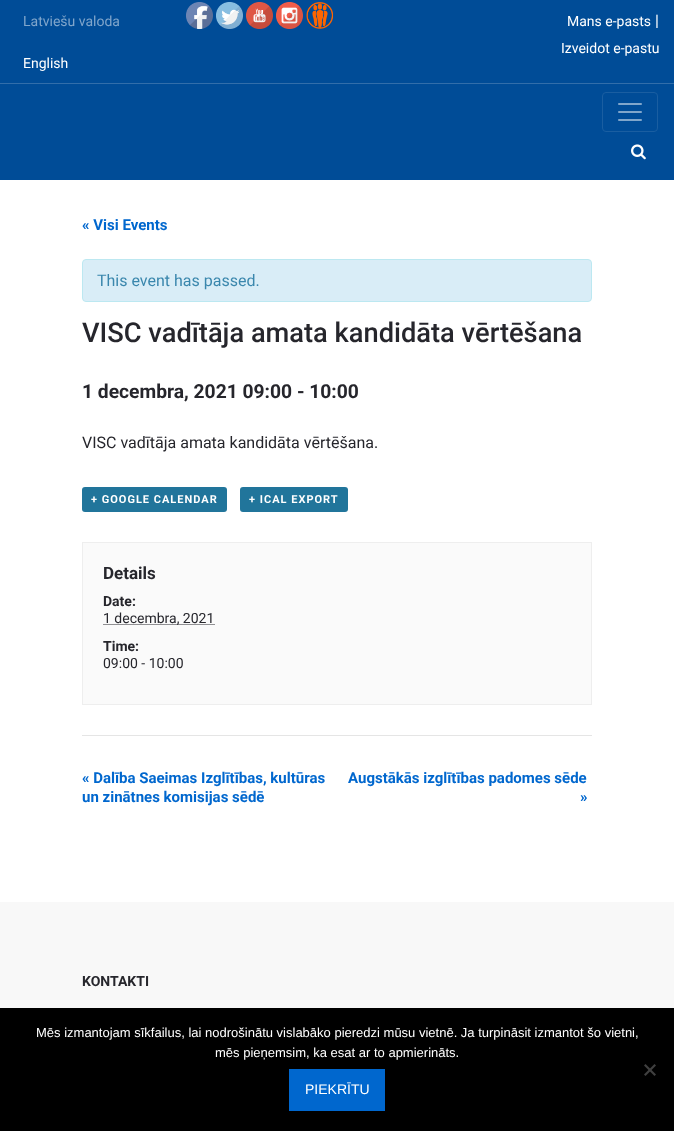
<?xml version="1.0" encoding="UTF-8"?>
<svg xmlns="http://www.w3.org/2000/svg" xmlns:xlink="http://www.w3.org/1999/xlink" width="674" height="1131">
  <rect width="100%" height="100%" fill="#ffffff" />
  <rect width="674" height="83" fill="#004c97" />
  <rect y="83" width="674" height="1" fill="#326eaa" />
  <image x="186" y="2" width="27" height="27" xlink:href="image1.png" />
  <image x="216" y="2" width="27" height="27" xlink:href="image2.png" />
  <image x="246" y="2" width="27" height="27" xlink:href="image3.png" />
  <image x="276" y="2" width="27" height="27" xlink:href="image4.png" />
  <image x="306" y="2" width="27" height="27" xlink:href="image5.png" />
  <rect y="84" width="674" height="96" fill="#004c97" />
  <rect x="602.5" y="92.5" width="55" height="39" rx="3.5" fill="none" stroke="#1a5ea1" />
  <image x="618" y="103" width="24" height="18" xlink:href="image6.png" />
  <image x="631" y="144" width="15" height="16" xlink:href="image7.png" />
  <rect x="82.5" y="259.5" width="509" height="42" rx="3.5" fill="#d9edf7" stroke="#bce8f1" />
  <rect x="82" y="487" width="145" height="25" rx="3" fill="#21759b" />
  <rect x="240" y="487" width="108" height="25" rx="3" fill="#21759b" />
  <rect x="82.5" y="542.5" width="509" height="162" fill="#fafafa" stroke="#eeeeee" />
  <path d="M 103.5 624.5 h 111" fill="none" stroke="#26262c" stroke-dasharray="1 1" />
  <rect x="82" y="735" width="510" height="1" fill="#e5e5e5" />
  <rect y="902" width="674" height="106" fill="#f8f8f8" />
  <rect y="1008" width="674" height="123" fill="#000000" />
  <path d="M 654.5 1064 l 1.5 1.5 l -10.5 10.5 l -1.5 -1.5 z" fill="#404040" />
  <path d="M 644 1065.5 l 1.5 -1.5 l 10.5 10.5 l -1.5 1.5 z" fill="#404040" />
  <rect x="289" y="1069" width="96" height="42" fill="#0067ce" />
  <text x="23" y="26" style="font-family: Roboto; font-size: 14px; fill: #80a6cb">Latviešu valoda</text>
  <text x="23" y="68" style="font-family: Roboto; font-size: 14px; fill: #ffffff">English</text>
  <text x="567" y="26" style="font-family: Roboto; font-size: 14px; fill: #ffffff">Mans e-pasts</text>
  <text x="655" y="26" style="font-family: Roboto; font-size: 16px; fill: #ffffff">|</text>
  <text x="561" y="53" style="font-family: Roboto; font-size: 14px; fill: #ffffff">Izveidot e-pastu</text>
  <text x="82" y="230" style="font-family: Roboto; font-size: 15px; font-weight: bold; fill: #0067ce">« Visi Events</text>
  <text x="97" y="286" style="font-family: Roboto; font-size: 16px; fill: #3a87ad">This event has passed.</text>
  <text x="82" y="342" style="font-family: Roboto; font-size: 27.25px; font-weight: 500; fill: #26262c">VISC vadītāja amata kandidāta vērtēšana</text>
  <text x="82" y="398" style="font-family: Roboto; font-size: 19.25px; font-weight: bold; fill: #26262c">1 decembra, 2021 09:00 - 10:00</text>
  <text x="82" y="448" style="font-family: Roboto; font-size: 16px; fill: #26262c">VISC vadītāja amata kandidāta vērtēšana.</text>
  <text x="91" y="503" style="font-family: Roboto; font-size: 11px; font-weight: bold; letter-spacing: 1px; fill: #ffffff">+ GOOGLE CALENDAR</text>
  <text x="249" y="503" style="font-family: Roboto; font-size: 11px; font-weight: bold; letter-spacing: 1px; fill: #ffffff">+ ICAL EXPORT</text>
  <text x="103" y="579" style="font-family: Roboto; font-size: 17px; font-weight: bold; fill: #26262c">Details</text>
  <text x="103" y="606" style="font-family: Roboto; font-size: 14px; font-weight: bold; fill: #26262c">Date:</text>
  <text x="103" y="623" style="font-family: Roboto; font-size: 14px; fill: #26262c">1 decembra, 2021</text>
  <text x="103" y="651" style="font-family: Roboto; font-size: 14px; font-weight: bold; fill: #26262c">Time:</text>
  <text x="103" y="668" style="font-family: Roboto; font-size: 14px; fill: #26262c">09:00 - 10:00</text>
  <text x="82" y="783" style="font-family: Roboto; font-size: 15px; font-weight: bold; fill: #0067ce">« Dalība Saeimas Izglītības, kultūras</text>
  <text x="82" y="802" style="font-family: Roboto; font-size: 15px; font-weight: bold; fill: #0067ce">un zinātnes komisijas sēdē</text>
  <text x="348" y="783" style="font-family: Roboto; font-size: 15px; font-weight: bold; fill: #0067ce">Augstākās izglītības padomes sēde</text>
  <text x="580" y="802" style="font-family: Roboto; font-size: 15px; font-weight: bold; fill: #0067ce">»</text>
  <text x="82" y="986" style="font-family: Roboto; font-size: 14px; font-weight: bold; fill: #26262c">KONTAKTI</text>
  <text x="36" y="1037" style="font-family: Liberation Sans; font-size: 13px; fill: #ffffff">Mēs izmantojam sīkfailus, lai nodrošinātu vislabāko pieredzi mūsu vietnē. Ja turpināsit izmantot šo vietni,</text>
  <text x="215" y="1057" style="font-family: Liberation Sans; font-size: 13px; fill: #ffffff">mēs pieņemsim, ka esat ar to apmierināts.</text>
  <text x="305" y="1094" style="font-family: Liberation Sans; font-size: 14px; fill: #ffffff">PIEKRĪTU</text>
</svg>
